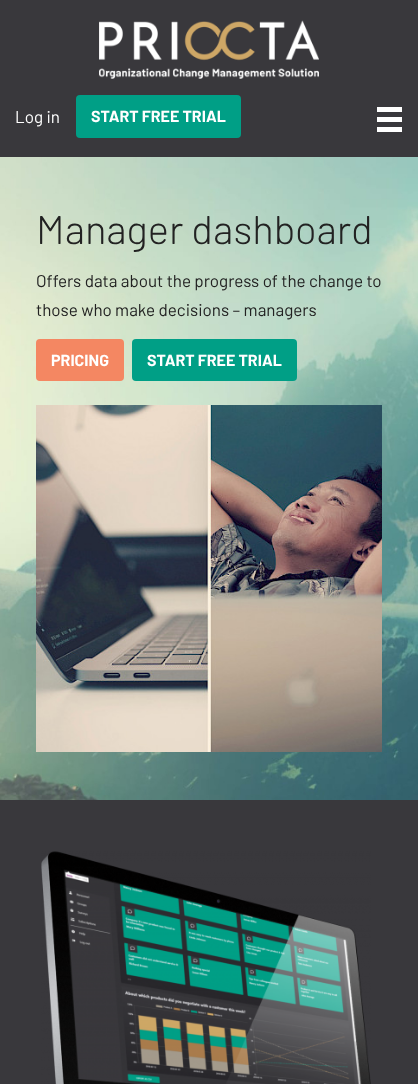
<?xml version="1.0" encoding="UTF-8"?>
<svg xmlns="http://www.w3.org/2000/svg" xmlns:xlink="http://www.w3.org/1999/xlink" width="418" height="1084">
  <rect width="100%" height="100%" fill="#39383c" />
  <image x="99" y="20" width="220" height="59" xlink:href="image1.png" />
  <rect x="76" y="95" width="165" height="43" rx="4" fill="#009f86" />
  <image x="377" y="107" width="25" height="25" xlink:href="image2.png" />
  <image x="0" y="157" width="418" height="643" xlink:href="image3.png" />
  <rect x="36" y="339" width="88" height="42" rx="4" fill="#f48762" />
  <rect x="132" y="339" width="165" height="42" rx="4" fill="#009f86" />
  <image x="36" y="405" width="346" height="347" xlink:href="image4.png" />
  <image x="41" y="851" width="330" height="233" xlink:href="image5.png" />
  <text x="15" y="123" style="font-family: Barlow; font-size: 17px; fill: #ffffff">Log in</text>
  <text x="91" y="122" style="font-family: Barlow; font-size: 16px; font-weight: bold; fill: #ffffff">START FREE TRIAL</text>
  <text x="36" y="244" style="font-family: Barlow; font-size: 40px; font-weight: 300; fill: #222222">Manager dashboard</text>
  <text x="36" y="287" style="font-family: Barlow; font-size: 17px; fill: #222222">Offers data about the progress of the change to</text>
  <text x="36" y="316" style="font-family: Barlow; font-size: 17px; fill: #222222">those who make decisions – managers</text>
  <text x="51" y="366" style="font-family: Barlow; font-size: 16px; font-weight: bold; fill: #ffffff">PRICING</text>
  <text x="147" y="366" style="font-family: Barlow; font-size: 16px; font-weight: bold; fill: #ffffff">START FREE TRIAL</text>
</svg>
